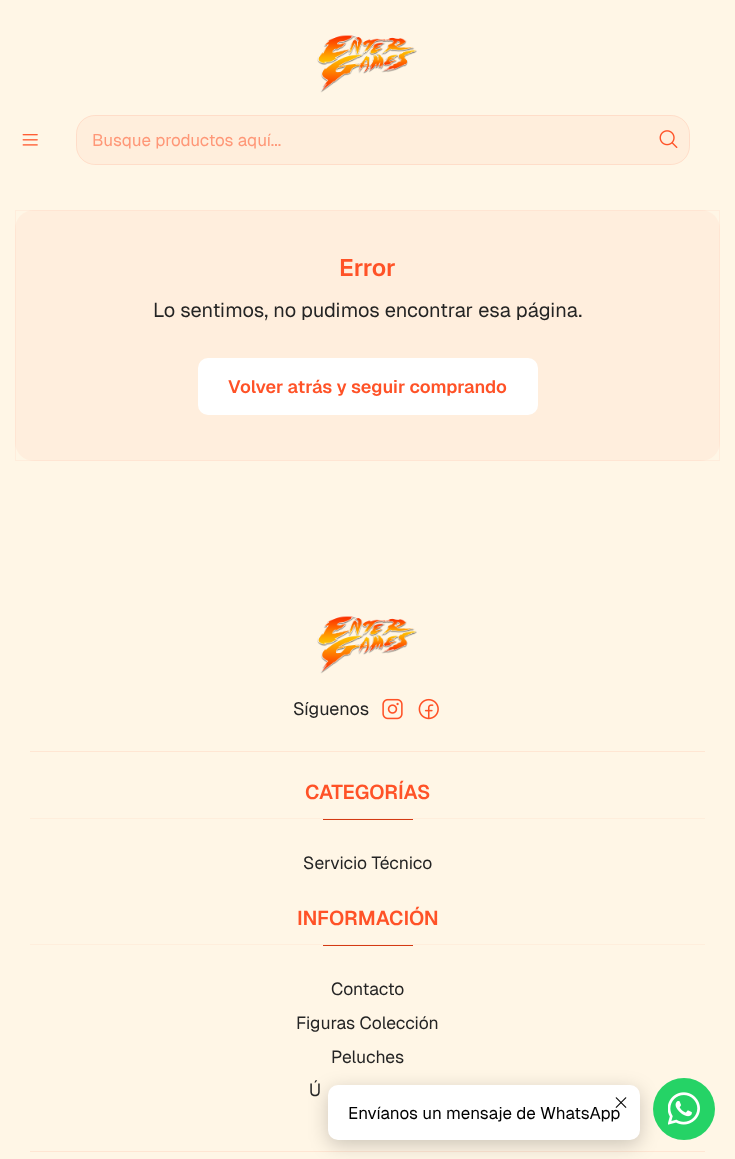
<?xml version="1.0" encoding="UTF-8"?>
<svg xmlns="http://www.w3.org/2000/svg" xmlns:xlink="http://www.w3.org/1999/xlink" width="735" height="1159">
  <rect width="100%" height="100%" fill="#fff6e6" />
  <image x="317" y="35" width="100" height="58" xlink:href="image1.png" />
  <image x="22" y="134" width="16" height="12" xlink:href="image2.png" />
  <rect x="76" y="115" width="614" height="50" rx="19" fill="#ffeedc" />
  <rect x="76.5" y="115.5" width="613" height="49" rx="18.5" fill="none" stroke="#ff5227" stroke-opacity="0.1" />
  <image x="659" y="130" width="19" height="18" xlink:href="image3.png" />
  <rect x="15" y="210" width="705" height="251" rx="19" fill="#ffeedd" />
  <rect x="15.5" y="210.5" width="704" height="250" fill="none" stroke="#ff5227" stroke-opacity="0.05" />
  <rect x="198" y="358" width="340" height="57" rx="10" fill="#ffffff" />
  <image x="317" y="616" width="100" height="58" xlink:href="image4.png" />
  <image x="382" y="698" width="21" height="22" xlink:href="image5.png" />
  <image x="418" y="698" width="21" height="22" xlink:href="image6.png" />
  <rect x="30" y="751" width="675" height="1" fill="#ffe6d3" />
  <rect x="30" y="818" width="675" height="1" fill="#ffeedc" />
  <rect x="323" y="819" width="90" height="1" fill="#d33a14" />
  <rect x="30" y="944" width="675" height="1" fill="#ffeedc" />
  <rect x="323" y="945" width="90" height="1" fill="#d33a14" />
  <rect x="30" y="1151" width="675" height="1" fill="#ffe6d3" />
  <rect x="328" y="1090" width="312" height="55" rx="10" fill="#000000" fill-opacity="0.2" filter="blur(9.5px)" />
  <rect x="328" y="1085" width="312" height="55" rx="10" fill="#ffffff" />
  <circle cx="684" cy="1109" r="31" fill="#25d366" />
  <image x="668" y="1092" width="32" height="33" xlink:href="image8.png" />
  <text x="92" y="146" style="font-family: Geist; font-size: 17px; fill: #ff9777">Busque productos aquí...</text>
  <text x="339" y="276" style="font-family: Geist; font-size: 24px; font-weight: 600; fill: #ff5227">Error</text>
  <text x="153" y="317" style="font-family: Geist; font-size: 20px; fill: #242424">Lo sentimos, no pudimos encontrar esa página.</text>
  <text x="228" y="393" style="font-family: Geist; font-size: 18px; font-weight: 600; fill: #ff5227">Volver atrás y seguir comprando</text>
  <text x="293" y="715" style="font-family: Geist; font-size: 18px; fill: #242424">Síguenos</text>
  <text x="305" y="799" style="font-family: Geist; font-size: 20px; font-weight: 600; fill: #ff5227">CATEGORÍAS</text>
  <text x="303" y="869" style="font-family: Geist; font-size: 17.5px; fill: #242424">Servicio Técnico</text>
  <text x="297" y="925" style="font-family: Geist; font-size: 20px; font-weight: 600; fill: #ff5227">INFORMACIÓN</text>
  <text x="331" y="995" style="font-family: Geist; font-size: 17.5px; fill: #242424">Contacto</text>
  <text x="296" y="1029" style="font-family: Geist; font-size: 17.5px; fill: #242424">Figuras Colección</text>
  <text x="331" y="1063" style="font-family: Geist; font-size: 17.5px; fill: #242424">Peluches</text>
  <text x="309" y="1096" style="font-family: Geist; font-size: 17.5px; fill: #242424">Ú</text>
  <text x="348" y="1119" style="font-family: Geist; font-size: 17px; fill: #000000">Envíanos un mensaje de WhatsApp</text>
  <image x="615" y="1097" width="12" height="11" xlink:href="image7.png" />
</svg>
